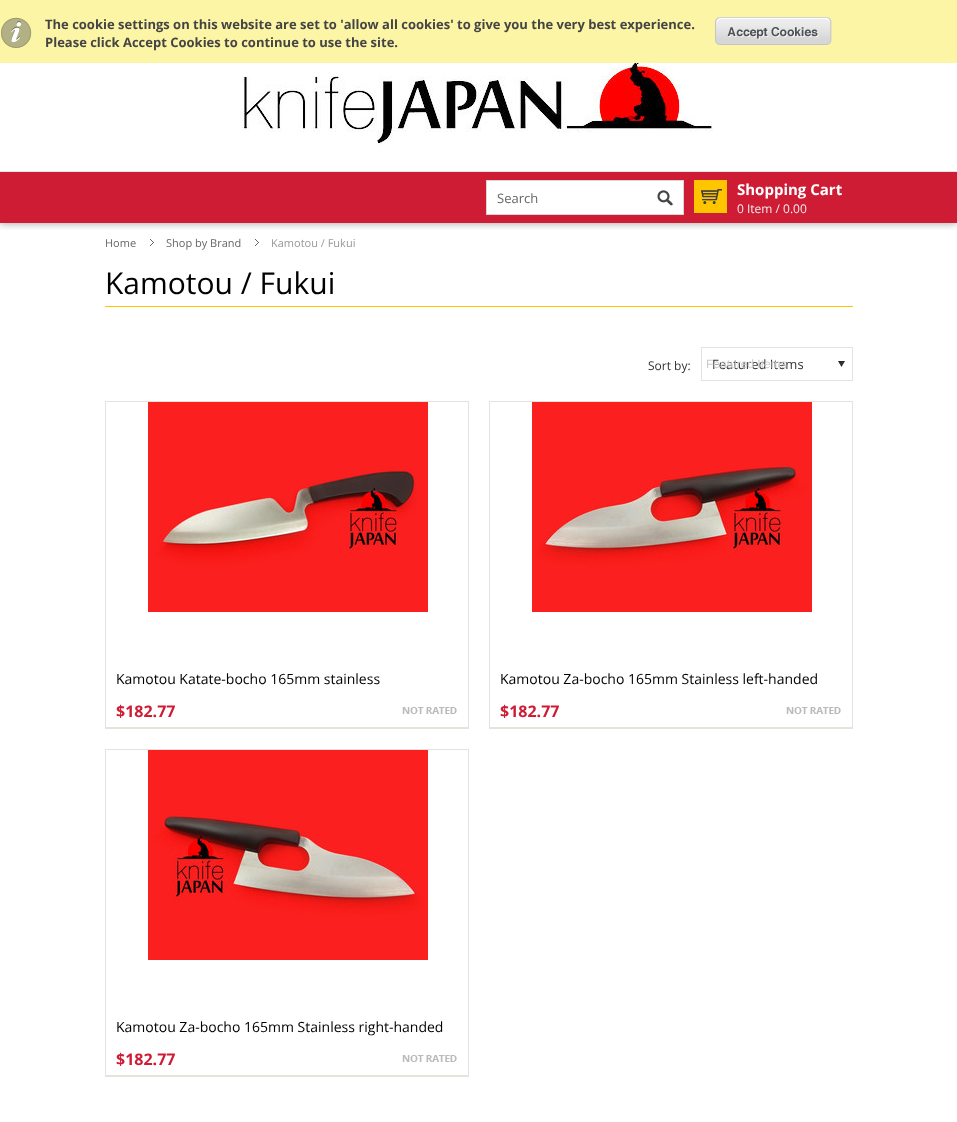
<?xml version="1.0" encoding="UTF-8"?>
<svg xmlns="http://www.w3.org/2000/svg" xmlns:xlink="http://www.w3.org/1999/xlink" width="957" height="1122">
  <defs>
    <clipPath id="clip1"><rect x="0" y="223" width="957" height="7" /></clipPath>
  </defs>
  <rect width="100%" height="100%" fill="#ffffff" />
  <g clip-path="url(#clip1)">
    <rect width="957" height="223" fill="#000000" fill-opacity="0.4" filter="blur(4px)" />
  </g>
  <rect width="957" height="63" fill="#fcf5a6" />
  <image x="1" y="17" width="31" height="31" xlink:href="image1.png" />
  <image x="715" y="17" width="117" height="28" xlink:href="image2.png" />
  <rect y="172" width="957" height="51" fill="#cf1c35" />
  <rect y="171" width="957" height="1" fill="#e5e5e5" />
  <image x="241" y="63" width="472" height="84" xlink:href="image3.png" />
  <rect x="487" y="181" width="196" height="33" fill="#ffffff" />
  <rect x="486" y="180" width="198" height="1" fill="#d6d6d6" />
  <rect x="486" y="214" width="160" height="1" fill="#d6d6d6" />
  <rect x="486" y="180" width="1" height="35" fill="#d6d6d6" />
  <image x="657" y="190" width="16" height="16" xlink:href="image4.png" />
  <rect x="683" y="180" width="1" height="35" fill="#d6d6d6" />
  <rect x="646" y="214" width="38" height="1" fill="#d6d6d6" />
  <rect x="694" y="180" width="33" height="33" fill="#ffc600" />
  <image x="701" y="189" width="21" height="15" xlink:href="image5.png" />
  <image x="150" y="239" width="4" height="7" xlink:href="image6.png" />
  <image x="255" y="239" width="4" height="7" xlink:href="image6.png" />
  <rect x="105" y="306" width="748" height="1" fill="#ffc600" />
  <image x="838" y="361" width="7" height="6" xlink:href="image7.png" />
  <rect x="701.5" y="347.5" width="151" height="33" fill="none" stroke="#e5e3db" />
  <rect x="105" y="401" width="364" height="1" fill="#e5e3db" />
  <rect x="468" y="401" width="1" height="328" fill="#e5e3db" />
  <rect x="105" y="727" width="364" height="2" fill="#e5e3db" />
  <rect x="105" y="401" width="1" height="328" fill="#e5e3db" />
  <image x="148" y="402" width="280" height="210" xlink:href="image8.png" />
  <image x="402" y="707" width="55" height="7" xlink:href="image9.png" />
  <rect x="489" y="401" width="364" height="1" fill="#e5e3db" />
  <rect x="852" y="401" width="1" height="328" fill="#e5e3db" />
  <rect x="489" y="727" width="364" height="2" fill="#e5e3db" />
  <rect x="489" y="401" width="1" height="328" fill="#e5e3db" />
  <image x="532" y="402" width="280" height="210" xlink:href="image10.png" />
  <image x="786" y="707" width="55" height="7" xlink:href="image9.png" />
  <rect x="105" y="749" width="364" height="1" fill="#e5e3db" />
  <rect x="468" y="749" width="1" height="328" fill="#e5e3db" />
  <rect x="105" y="1075" width="364" height="2" fill="#e5e3db" />
  <rect x="105" y="749" width="1" height="328" fill="#e5e3db" />
  <image x="148" y="750" width="280" height="210" xlink:href="image11.png" />
  <image x="402" y="1055" width="55" height="7" xlink:href="image9.png" />
  <text x="45" y="29" style="font-family: Open Sans; font-size: 13px; font-weight: bold; fill: #444444">The cookie settings on this website are set to 'allow all cookies' to give you the very best experience.</text>
  <text x="45" y="47" style="font-family: Open Sans; font-size: 13px; font-weight: bold; fill: #444444">Please click Accept Cookies to continue to use the site.</text>
  <text x="497" y="203" style="font-family: Open Sans; font-size: 13px; fill: #666666">Search</text>
  <text x="737" y="195" style="font-family: Open Sans; font-size: 15px; font-weight: bold; fill: #ffffff">Shopping Cart</text>
  <text x="737" y="213" style="font-family: Open Sans; font-size: 12px; fill: #eeeeee">0 Item / 0.00</text>
  <text x="105" y="247" style="font-family: Open Sans; font-size: 11px; fill: #666666">Home</text>
  <text x="166" y="247" style="font-family: Open Sans; font-size: 11px; fill: #666666">Shop by Brand</text>
  <text x="271" y="247" style="font-family: Open Sans; font-size: 11px; fill: #999999">Kamotou / Fukui</text>
  <text x="105" y="294" style="font-family: Open Sans; font-size: 30px; fill: #000000">Kamotou / Fukui</text>
  <text x="648" y="370" style="font-family: Open Sans; font-size: 12px; fill: #333333">Sort by:</text>
  <text x="712" y="369" style="font-family: Open Sans; font-size: 13px; fill: #333333">Featured Items</text>
  <text x="706" y="368" style="font-family: Liberation Sans; font-size: 12px; fill: #cccccc">Featured Items</text>
  <text x="116" y="684" style="font-family: Open Sans; font-size: 14px; fill: #000000">Kamotou Katate-bocho 165mm stainless</text>
  <text x="116" y="717" style="font-family: Open Sans; font-size: 16px; font-weight: bold; fill: #cf1c35">$182.77</text>
  <text x="500" y="684" style="font-family: Open Sans; font-size: 14px; fill: #000000">Kamotou Za-bocho 165mm Stainless left-handed</text>
  <text x="500" y="717" style="font-family: Open Sans; font-size: 16px; font-weight: bold; fill: #cf1c35">$182.77</text>
  <text x="116" y="1032" style="font-family: Open Sans; font-size: 14px; fill: #000000">Kamotou Za-bocho 165mm Stainless right-handed</text>
  <text x="116" y="1065" style="font-family: Open Sans; font-size: 16px; font-weight: bold; fill: #cf1c35">$182.77</text>
</svg>
